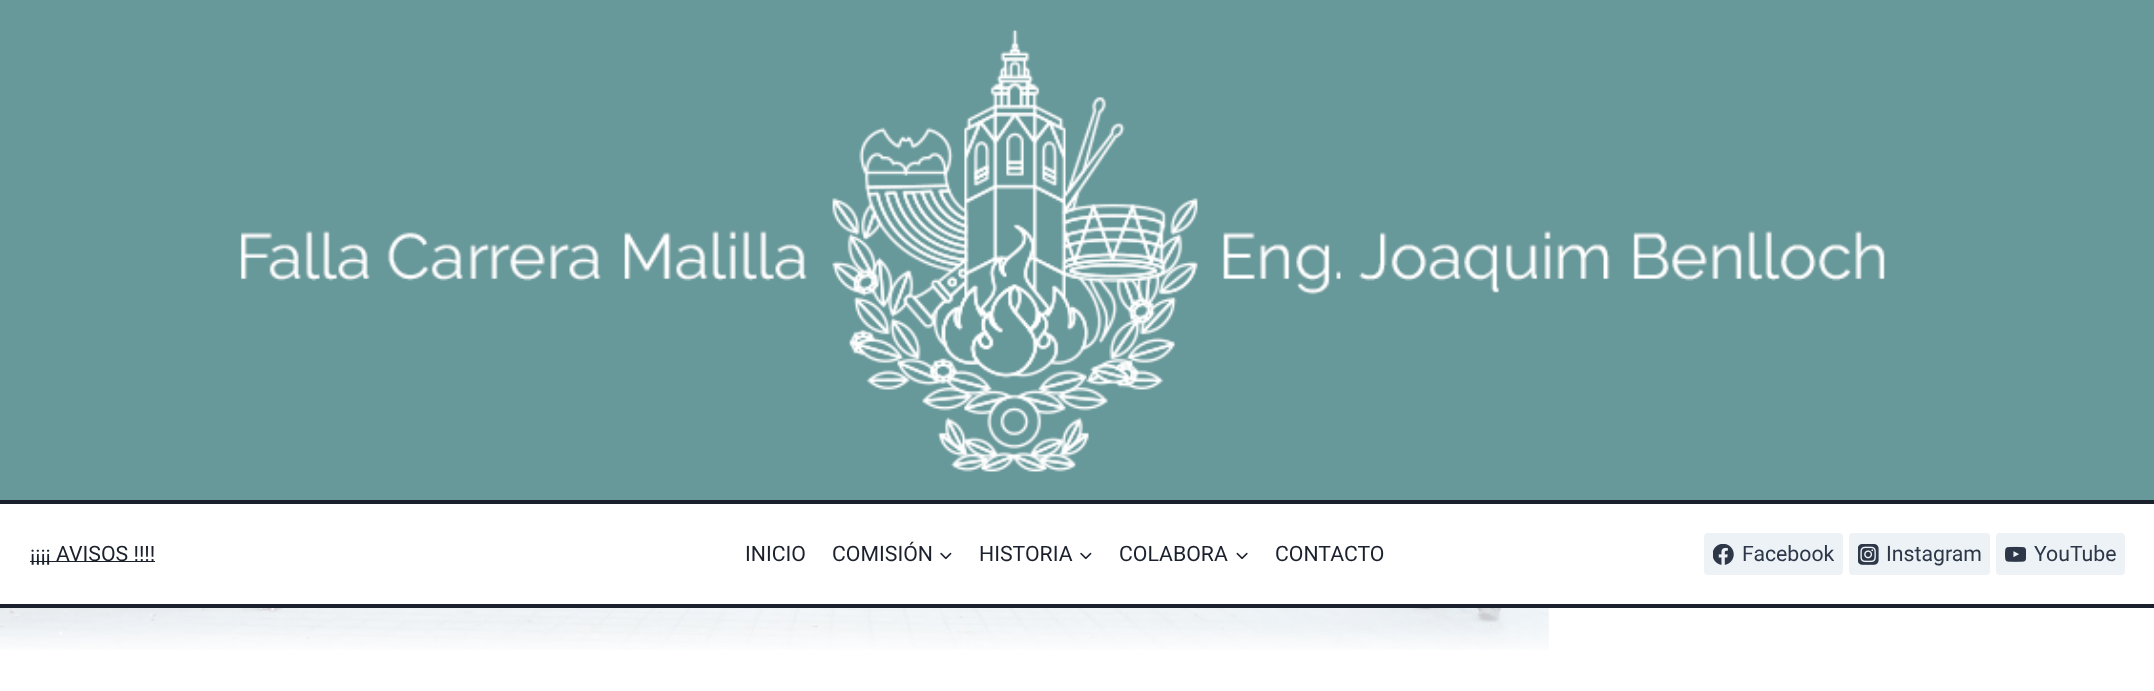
<?xml version="1.0" encoding="UTF-8"?>
<svg xmlns="http://www.w3.org/2000/svg" xmlns:xlink="http://www.w3.org/1999/xlink" width="2154" height="691">
  <rect width="100%" height="100%" fill="#ffffff" />
  <image x="0" y="608" width="1549" height="42" xlink:href="image1.png" />
  <rect width="2154" height="500" fill="#67989a" />
  <image x="240" y="30" width="1645" height="442" xlink:href="image2.png" />
  <rect y="500" width="2154" height="4" fill="#1a202c" />
  <rect y="604" width="2154" height="4" fill="#1a202c" />
  <rect x="30" y="561" width="125" height="1" fill="#1a202c" />
  <image x="940" y="552" width="12" height="8" xlink:href="image3.png" />
  <image x="1080" y="552" width="12" height="8" xlink:href="image3.png" />
  <image x="1236" y="552" width="12" height="8" xlink:href="image4.png" />
  <rect x="1704" y="533" width="139" height="42" rx="4" fill="#edf2f7" />
  <image x="1713" y="544" width="21" height="21" xlink:href="image5.png" />
  <rect x="1849" y="533" width="141" height="42" rx="4" fill="#edf2f7" />
  <image x="1858" y="544" width="21" height="21" xlink:href="image6.png" />
  <rect x="1996" y="533" width="129" height="42" rx="4" fill="#edf2f7" />
  <image x="2005" y="546" width="21" height="16" xlink:href="image7.png" />
  <text x="30" y="561" style="font-family: Roboto; font-size: 21.25px; fill: #1a202c">¡¡¡¡ AVISOS !!!!</text>
  <text x="745" y="561" style="font-family: Roboto; font-size: 21.25px; fill: #1a202c">INICIO</text>
  <text x="832" y="561" style="font-family: Roboto; font-size: 21.25px; fill: #1a202c">COMISIÓN</text>
  <text x="979" y="561" style="font-family: Roboto; font-size: 21.25px; fill: #1a202c">HISTORIA</text>
  <text x="1119" y="561" style="font-family: Roboto; font-size: 21.25px; fill: #1a202c">COLABORA</text>
  <text x="1275" y="561" style="font-family: Roboto; font-size: 21.25px; fill: #1a202c">CONTACTO</text>
  <text x="1742" y="561" style="font-family: Roboto; font-size: 21.25px; fill: #2d3748">Facebook</text>
  <text x="1886" y="561" style="font-family: Roboto; font-size: 21.25px; fill: #2d3748">Instagram</text>
  <text x="2034" y="561" style="font-family: Roboto; font-size: 21.25px; fill: #2d3748">YouTube</text>
</svg>
